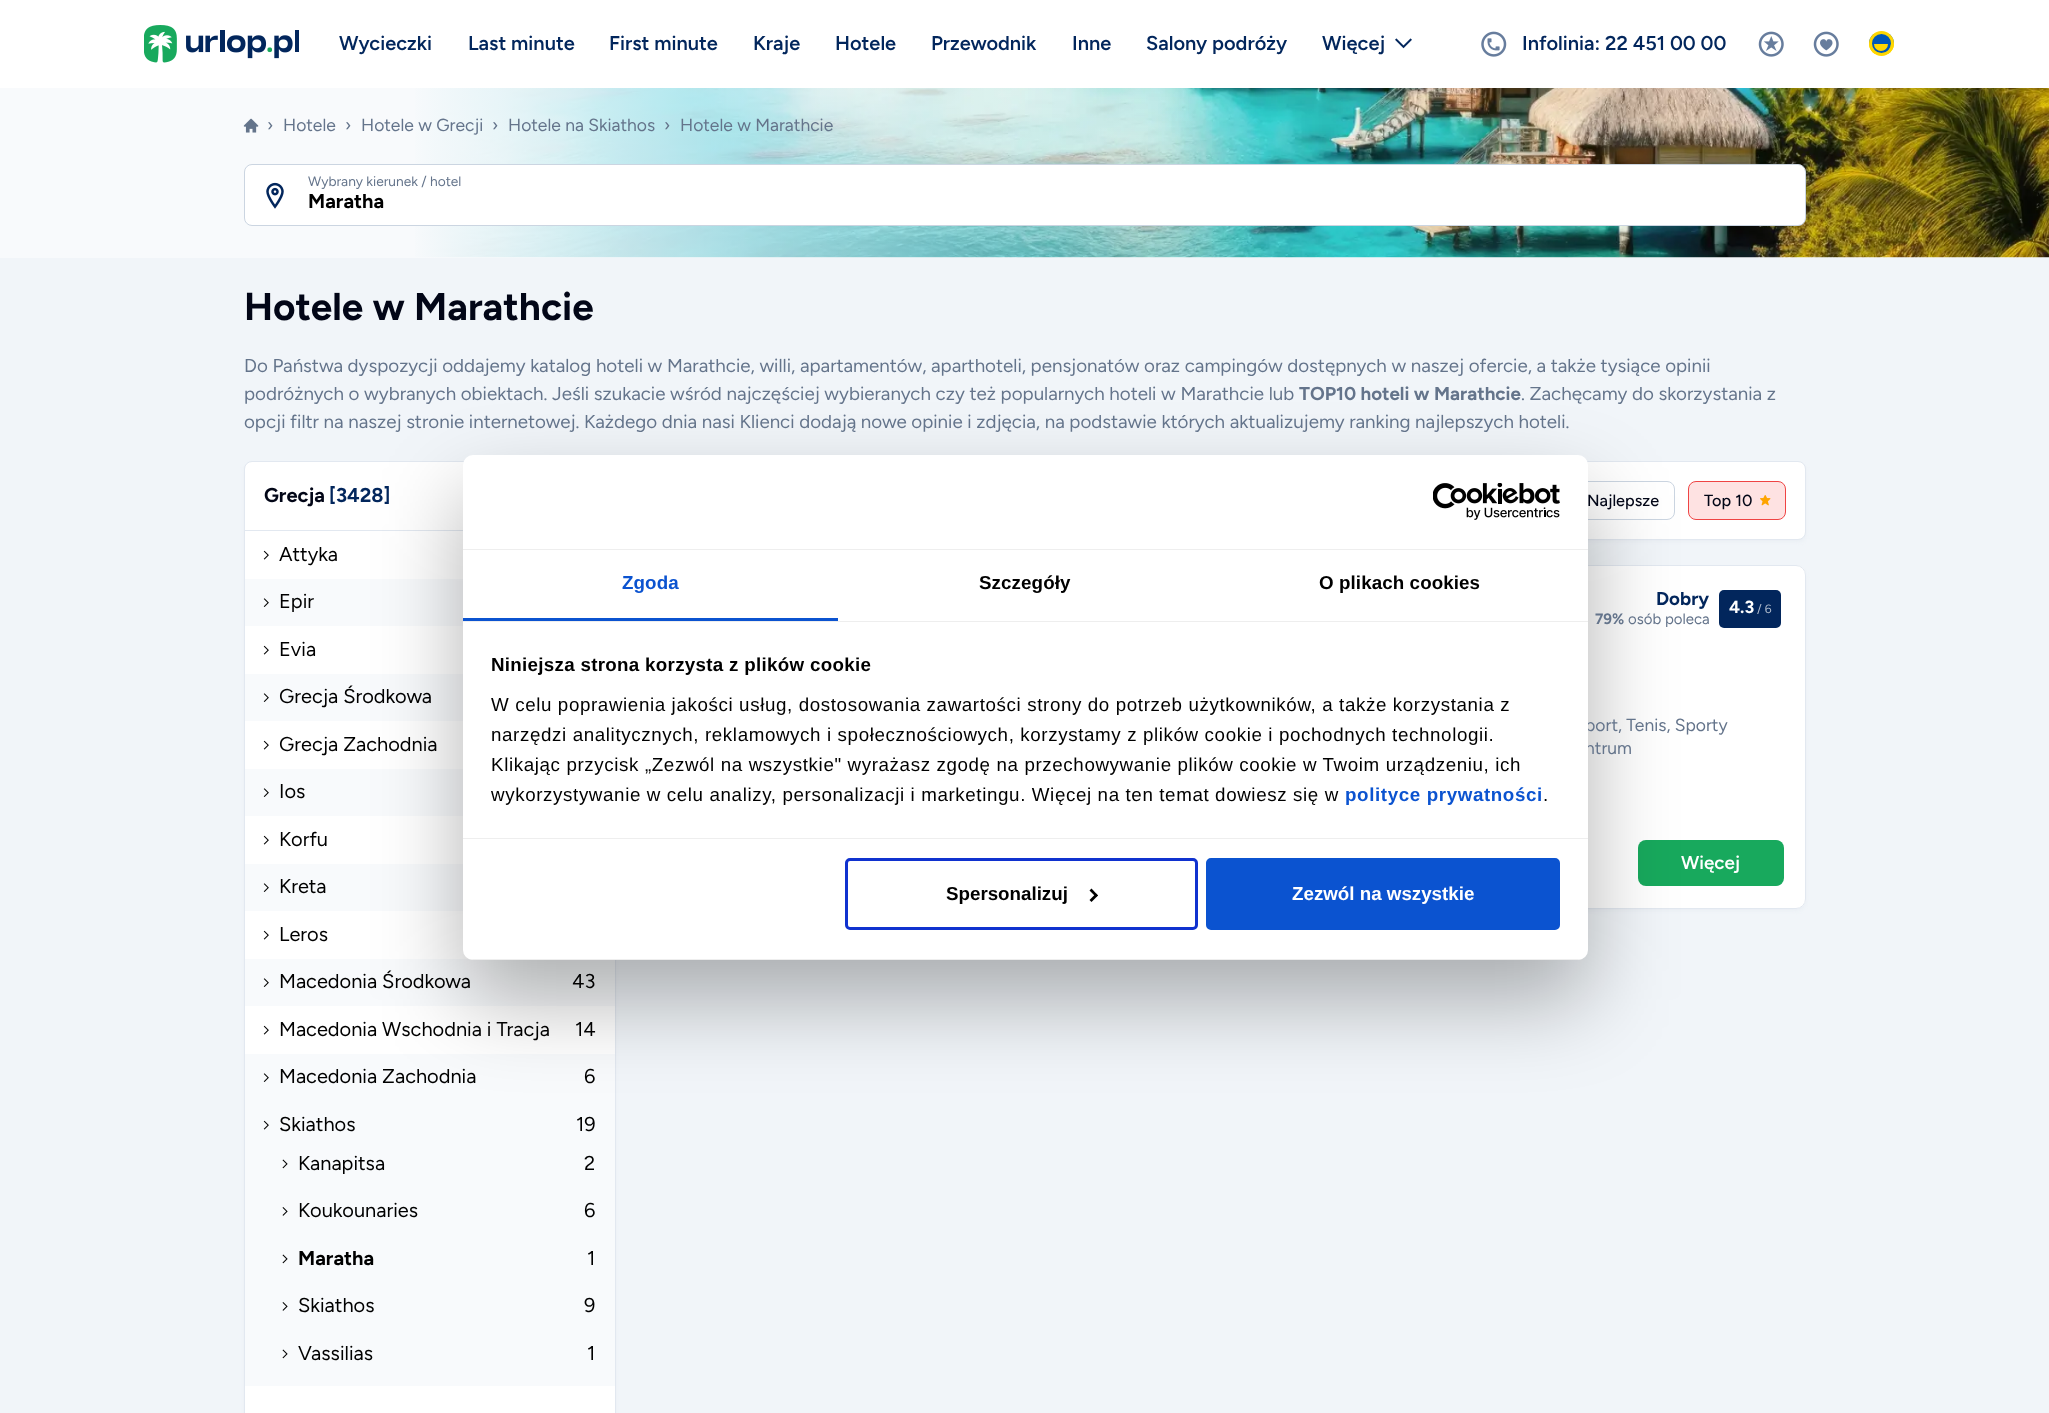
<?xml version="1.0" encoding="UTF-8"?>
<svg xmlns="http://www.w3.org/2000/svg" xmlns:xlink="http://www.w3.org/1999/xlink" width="2049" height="1413">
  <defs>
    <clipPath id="clip1"><rect x="1869" y="31" width="25" height="25" rx="12.5" /></clipPath>
    <linearGradient id="g1" gradientUnits="userSpaceOnUse" x1="410" y1="173" x2="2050" y2="172"><stop offset="0" stop-color="#f8fafc" /><stop offset="0.5" stop-color="#f8fafc" stop-opacity="0" /></linearGradient>
    <clipPath id="clip2"><rect x="463" y="455" width="1125" height="505" rx="10" /></clipPath>
  </defs>
  <rect width="100%" height="100%" fill="#f1f5f9" />
  <rect width="2049" height="88" fill="#ffffff" />
  <image x="144" y="25" width="155" height="38" xlink:href="image1.png" />
  <image x="1395" y="38" width="17" height="11" xlink:href="image2.png" />
  <image x="1481" y="31" width="26" height="26" xlink:href="image3.png" />
  <image x="1758" y="31" width="26" height="26" xlink:href="image4.png" />
  <image x="1813" y="31" width="26" height="26" xlink:href="image5.png" />
  <g clip-path="url(#clip1)">
    <rect x="1869" y="34" width="25" height="10" fill="#0057b8" />
    <rect x="1869" y="44" width="25" height="10" fill="#ffd700" />
  </g>
  <circle cx="1881" cy="44" r="8.5" fill="none" stroke="#0057b8" stroke-width="3" />
  <circle cx="1881.5" cy="43.5" r="11" fill="none" stroke="#ffd700" stroke-width="3" />
  <rect y="88" width="2049" height="170" fill="#f8fafc" />
  <image x="415" y="88" width="1634" height="170" xlink:href="image6.png" />
  <rect x="415" y="88" width="797" height="170" fill="url(#g1)" />
  <image x="243" y="118" width="16" height="15" xlink:href="image7.png" />
  <rect x="244.5" y="164.5" width="1561" height="61" rx="7.5" fill="#ffffff" stroke="#cbd5e1" />
  <image x="266" y="182" width="18" height="27" xlink:href="image8.png" />
  <rect x="246" y="466" width="368" height="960" rx="5" fill="#e2e8f0" filter="blur(2.5px)" />
  <rect x="244.5" y="461.5" width="371" height="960" rx="7.5" fill="#ffffff" stroke="#e2e8f0" />
  <rect x="245" y="530" width="218" height="1" fill="#e2e8f0" />
  <image x="263" y="550" width="6" height="10" xlink:href="image9.png" />
  <rect x="245" y="579" width="218" height="47" fill="#f8fafc" />
  <image x="263" y="598" width="6" height="9" xlink:href="image10.png" />
  <image x="263" y="645" width="6" height="10" xlink:href="image9.png" />
  <rect x="245" y="674" width="218" height="47" fill="#f8fafc" />
  <image x="263" y="693" width="6" height="9" xlink:href="image10.png" />
  <image x="263" y="740" width="6" height="10" xlink:href="image9.png" />
  <rect x="245" y="769" width="218" height="47" fill="#f8fafc" />
  <image x="263" y="788" width="6" height="9" xlink:href="image10.png" />
  <image x="263" y="835" width="6" height="10" xlink:href="image9.png" />
  <rect x="245" y="864" width="218" height="47" fill="#f8fafc" />
  <image x="263" y="883" width="6" height="9" xlink:href="image10.png" />
  <image x="263" y="930" width="6" height="10" xlink:href="image9.png" />
  <rect x="245" y="959" width="370" height="47" fill="#f8fafc" />
  <image x="263" y="978" width="6" height="9" xlink:href="image10.png" />
  <image x="263" y="1025" width="6" height="10" xlink:href="image9.png" />
  <rect x="245" y="1054" width="370" height="332" fill="#f8fafc" />
  <image x="263" y="1073" width="6" height="9" xlink:href="image10.png" />
  <image x="263" y="1120" width="6" height="10" xlink:href="image11.png" />
  <image x="282" y="1159" width="6" height="10" xlink:href="image12.png" />
  <image x="282" y="1207" width="6" height="9" xlink:href="image13.png" />
  <image x="282" y="1254" width="6" height="10" xlink:href="image12.png" />
  <image x="282" y="1302" width="6" height="9" xlink:href="image13.png" />
  <image x="282" y="1349" width="6" height="10" xlink:href="image12.png" />
  <rect x="644" y="466" width="1160" height="74" rx="5" fill="#e2e8f0" filter="blur(2.5px)" />
  <rect x="641.5" y="461.5" width="1164" height="78" rx="7.5" fill="#ffffff" stroke="#e2e8f0" />
  <rect x="1570.5" y="481.5" width="104" height="38" rx="7.5" fill="none" stroke="#cbd5e1" />
  <rect x="1688.5" y="481.5" width="97" height="38" rx="7.5" fill="#fee2e2" stroke="#ef4444" />
  <image x="1760" y="495" width="11" height="11" xlink:href="image14.png" />
  <rect x="644" y="570" width="1160" height="339" rx="8" fill="#e2e8f0" filter="blur(2.5px)" />
  <rect x="641" y="565" width="1165" height="344" rx="10" fill="#ffffff" />
  <rect x="641.5" y="565.5" width="1164" height="343" rx="9.5" fill="none" stroke="#e2e8f0" />
  <rect x="1719" y="590" width="62" height="38" rx="5" fill="#02265c" />
  <rect x="1638" y="840" width="146" height="46" rx="8" fill="#18a95d" />
  <rect x="463" y="495" width="1125" height="505" rx="10" fill="#000000" fill-opacity="0.3" filter="blur(42.5px)" />
  <text x="339" y="50" style="font-family: Figtree; font-size: 20px; font-weight: 600; fill: #02265c">Wycieczki</text>
  <text x="468" y="50" style="font-family: Figtree; font-size: 20px; font-weight: 600; fill: #02265c">Last minute</text>
  <text x="609" y="50" style="font-family: Figtree; font-size: 20px; font-weight: 600; fill: #02265c">First minute</text>
  <text x="753" y="50" style="font-family: Figtree; font-size: 20px; font-weight: 600; fill: #02265c">Kraje</text>
  <text x="835" y="50" style="font-family: Figtree; font-size: 20px; font-weight: 600; fill: #02265c">Hotele</text>
  <text x="931" y="50" style="font-family: Figtree; font-size: 20px; font-weight: 600; fill: #02265c">Przewodnik</text>
  <text x="1072" y="50" style="font-family: Figtree; font-size: 20px; font-weight: 600; fill: #02265c">Inne</text>
  <text x="1146" y="50" style="font-family: Figtree; font-size: 20px; font-weight: 600; fill: #02265c">Salony podróży</text>
  <text x="1322" y="50" style="font-family: Figtree; font-size: 20px; font-weight: 600; fill: #02265c">Więcej</text>
  <text x="1522" y="50" style="font-family: Figtree; font-size: 20px; font-weight: 600; fill: #02265c">Infolinia: 22 451 00 00</text>
  <text x="267" y="131" style="font-family: 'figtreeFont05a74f'; font-size: 17.5px; fill: #64748b">›</text>
  <text x="283" y="131" style="font-family: 'figtreeFont05a74f'; font-size: 17.5px; fill: #64748b">Hotele</text>
  <text x="345" y="131" style="font-family: 'figtreeFont05a74f'; font-size: 17.5px; fill: #64748b">›</text>
  <text x="361" y="131" style="font-family: 'figtreeFont05a74f'; font-size: 17.5px; fill: #64748b">Hotele w Grecji</text>
  <text x="492" y="131" style="font-family: 'figtreeFont05a74f'; font-size: 17.5px; fill: #64748b">›</text>
  <text x="508" y="131" style="font-family: 'figtreeFont05a74f'; font-size: 17.5px; fill: #64748b">Hotele na Skiathos</text>
  <text x="664" y="131" style="font-family: 'figtreeFont05a74f'; font-size: 17.5px; fill: #64748b">›</text>
  <text x="680" y="131" style="font-family: 'figtreeFont05a74f'; font-size: 17.5px; fill: #64748b">Hotele w Marathcie</text>
  <text x="308" y="186" style="font-family: 'figtreeFont05a74f'; font-size: 13.75px; fill: #64748b">Wybrany kierunek / hotel</text>
  <text x="308" y="208" style="font-family: 'figtreeFont05a74f'; font-size: 20px; font-weight: bold; fill: #000000">Maratha</text>
  <text x="244" y="320" style="font-family: 'figtreeFont05a74f'; font-size: 38.75px; font-weight: bold; fill: #020617">Hotele w Marathcie</text>
  <text x="244" y="372" style="font-family: 'figtreeFont05a74f'; font-size: 18.75px; fill: #64748b">Do Państwa dyspozycji oddajemy katalog hoteli w Marathcie, willi, apartamentów, aparthoteli, pensjonatów oraz campingów dostępnych w naszej ofercie, a także tysiące opinii</text>
  <text x="244" y="400" style="font-family: 'figtreeFont05a74f'; font-size: 18.75px; fill: #64748b">podróżnych o wybranych obiektach. Jeśli szukacie wśród najczęściej wybieranych czy też popularnych hoteli w Marathcie lub</text>
  <text x="1299" y="400" style="font-family: 'figtreeFont05a74f'; font-size: 18.75px; font-weight: bold; fill: #64748b">TOP10 hoteli w Marathcie</text>
  <text x="1521" y="400" style="font-family: 'figtreeFont05a74f'; font-size: 18.75px; fill: #64748b">. Zachęcamy do skorzystania z</text>
  <text x="244" y="428" style="font-family: 'figtreeFont05a74f'; font-size: 18.75px; fill: #64748b">opcji filtr na naszej stronie internetowej. Każdego dnia nasi Klienci dodają nowe opinie i zdjęcia, na podstawie których aktualizujemy ranking najlepszych hoteli.</text>
  <text x="264" y="502" style="font-family: 'figtreeFont05a74f'; font-size: 20px; font-weight: bold; fill: #020617">Grecja</text>
  <text x="329" y="502" style="font-family: 'figtreeFont05a74f'; font-size: 20px; font-weight: bold; fill: #02265c">[3428]</text>
  <text x="279" y="561" style="font-family: 'figtreeFont05a74f'; font-size: 20px; fill: #000000">Attyka</text>
  <text x="279" y="608" style="font-family: 'figtreeFont05a74f'; font-size: 20px; fill: #000000">Epir</text>
  <text x="279" y="656" style="font-family: 'figtreeFont05a74f'; font-size: 20px; fill: #000000">Evia</text>
  <text x="279" y="703" style="font-family: 'figtreeFont05a74f'; font-size: 20px; fill: #000000">Grecja Środkowa</text>
  <text x="279" y="751" style="font-family: 'figtreeFont05a74f'; font-size: 20px; fill: #000000">Grecja Zachodnia</text>
  <text x="279" y="798" style="font-family: 'figtreeFont05a74f'; font-size: 20px; fill: #000000">Ios</text>
  <text x="279" y="846" style="font-family: 'figtreeFont05a74f'; font-size: 20px; fill: #000000">Korfu</text>
  <text x="279" y="893" style="font-family: 'figtreeFont05a74f'; font-size: 20px; fill: #000000">Kreta</text>
  <text x="279" y="941" style="font-family: 'figtreeFont05a74f'; font-size: 20px; fill: #000000">Leros</text>
  <text x="279" y="988" style="font-family: 'figtreeFont05a74f'; font-size: 20px; fill: #000000">Macedonia Środkowa</text>
  <text x="572" y="988" style="font-family: 'figtreeFont05a74f'; font-size: 20px; fill: #000000">43</text>
  <text x="279" y="1036" style="font-family: 'figtreeFont05a74f'; font-size: 20px; fill: #000000">Macedonia Wschodnia i Tracja</text>
  <text x="575" y="1036" style="font-family: 'figtreeFont05a74f'; font-size: 20px; fill: #000000">14</text>
  <text x="279" y="1083" style="font-family: 'figtreeFont05a74f'; font-size: 20px; fill: #000000">Macedonia Zachodnia</text>
  <text x="584" y="1083" style="font-family: 'figtreeFont05a74f'; font-size: 20px; fill: #000000">6</text>
  <text x="279" y="1131" style="font-family: 'figtreeFont05a74f'; font-size: 20px; fill: #000000">Skiathos</text>
  <text x="576" y="1131" style="font-family: 'figtreeFont05a74f'; font-size: 20px; fill: #000000">19</text>
  <text x="298" y="1170" style="font-family: 'figtreeFont05a74f'; font-size: 20px; fill: #000000">Kanapitsa</text>
  <text x="584" y="1170" style="font-family: 'figtreeFont05a74f'; font-size: 20px; fill: #000000">2</text>
  <text x="298" y="1217" style="font-family: 'figtreeFont05a74f'; font-size: 20px; fill: #000000">Koukounaries</text>
  <text x="584" y="1217" style="font-family: 'figtreeFont05a74f'; font-size: 20px; fill: #000000">6</text>
  <text x="298" y="1265" style="font-family: 'figtreeFont05a74f'; font-size: 20px; font-weight: bold; fill: #000000">Maratha</text>
  <text x="587" y="1265" style="font-family: 'figtreeFont05a74f'; font-size: 20px; fill: #000000">1</text>
  <text x="298" y="1312" style="font-family: 'figtreeFont05a74f'; font-size: 20px; fill: #000000">Skiathos</text>
  <text x="584" y="1312" style="font-family: 'figtreeFont05a74f'; font-size: 20px; fill: #000000">9</text>
  <text x="298" y="1360" style="font-family: 'figtreeFont05a74f'; font-size: 20px; fill: #000000">Vassilias</text>
  <text x="587" y="1360" style="font-family: 'figtreeFont05a74f'; font-size: 20px; fill: #000000">1</text>
  <text x="1587" y="506" style="font-family: Figtree; font-size: 16.25px; font-weight: 500; fill: #020617">Najlepsze</text>
  <text x="1704" y="506" style="font-family: Figtree; font-size: 16.25px; font-weight: 500; fill: #020617">Top 10</text>
  <text x="1656" y="605" style="font-family: 'figtreeFont05a74f'; font-size: 18.75px; font-weight: bold; fill: #02265c">Dobry</text>
  <text x="1595" y="624" style="font-family: 'figtreeFont05a74f'; font-size: 15px; font-weight: bold; fill: #64748b">79%</text>
  <text x="1628" y="624" style="font-family: 'figtreeFont05a74f'; font-size: 15px; fill: #64748b">osób poleca</text>
  <text x="1729" y="613" style="font-family: 'figtreeFont05a74f'; font-size: 17.5px; font-weight: bold; fill: #ffffff">4.3</text>
  <text x="1757" y="613" style="font-family: 'figtreeFont05a74f'; font-size: 12px; fill: #b3bece">/ 6</text>
  <text x="1585" y="731" style="font-family: 'figtreeFont05a74f'; font-size: 17.5px; fill: #64748b">port, Tenis, Sporty</text>
  <text x="1585" y="754" style="font-family: 'figtreeFont05a74f'; font-size: 17.5px; fill: #64748b">ntrum</text>
  <text x="1681" y="869" style="font-family: Figtree; font-size: 18.75px; font-weight: 600; fill: #ffffff">Więcej</text>
  <rect x="463" y="455" width="1125" height="505" rx="10" fill="#ffffff" />
  <rect x="463" y="549" width="1125" height="1" fill="#eeeeee" />
  <image x="1433" y="483" width="127" height="37" xlink:href="image15.png" />
  <rect x="463" y="621" width="1125" height="1" fill="#eeeeee" />
  <rect x="463" y="618" width="375" height="3" fill="#0b53d0" />
  <text x="622" y="589" style="font-family: Liberation Sans; font-size: 18.75px; font-weight: bold; letter-spacing: 0.1px; fill: #0b53d0">Zgoda</text>
  <text x="979" y="589" style="font-family: Liberation Sans; font-size: 18.75px; font-weight: bold; letter-spacing: 0.1px; fill: #000000">Szczegóły</text>
  <text x="1319" y="589" style="font-family: Liberation Sans; font-size: 18.75px; font-weight: bold; letter-spacing: 0.1px; fill: #000000">O plikach cookies</text>
  <rect x="463" y="838" width="1125" height="1" fill="#eeeeee" />
  <text x="491" y="671" style="font-family: Liberation Sans; font-size: 18.75px; font-weight: bold; letter-spacing: 0.3px; fill: #000000">Niniejsza strona korzysta z plików cookie</text>
  <text x="491" y="711" style="font-family: Liberation Sans; font-size: 18.75px; letter-spacing: 0.62px; fill: #000000">W celu poprawienia jakości usług, dostosowania zawartości strony do potrzeb użytkowników, a także korzystania z</text>
  <text x="491" y="741" style="font-family: Liberation Sans; font-size: 18.75px; letter-spacing: 0.62px; fill: #000000">narzędzi analitycznych, reklamowych i społecznościowych, korzystamy z plików cookie i pochodnych technologii.</text>
  <text x="491" y="771" style="font-family: Liberation Sans; font-size: 18.75px; letter-spacing: 0.62px; fill: #000000">Klikając przycisk „Zezwól na wszystkie" wyrażasz zgodę na przechowywanie plików cookie w Twoim urządzeniu, ich</text>
  <text x="491" y="801" style="font-family: Liberation Sans; font-size: 18.75px; letter-spacing: 0.62px; fill: #000000">wykorzystywanie w celu analizy, personalizacji i marketingu. Więcej na ten temat dowiesz się w</text>
  <text x="1345" y="801" style="font-family: Liberation Sans; font-size: 18.75px; font-weight: bold; letter-spacing: 0.62px; fill: #0b53d0">polityce prywatności</text>
  <text x="1543" y="801" style="font-family: Liberation Sans; font-size: 18.75px; letter-spacing: 0.62px; fill: #000000">.</text>
  <g clip-path="url(#clip2)">
    <rect x="463" y="959" width="1125" height="1" fill="#eeeeee" />
  </g>
  <rect x="846.5" y="859.5" width="350" height="69" rx="3.5" fill="none" stroke="#1032cf" stroke-width="3" />
  <text x="946" y="900" style="font-family: Liberation Sans; font-size: 18.75px; font-weight: bold; fill: #000000">Spersonalizuj</text>
  <path d="M 1091.5 888.5 l 6.5 7 l -2 1.5 l -6.5 -6.5 z" fill="#000000" />
  <path d="M 1096 893.5 l 2 2 l -6.5 6.5 l -2 -2 z" fill="#000000" />
  <rect x="1207.5" y="859.5" width="351" height="69" rx="3.5" fill="#0b53d0" stroke="#0b53d0" stroke-width="3" />
  <text x="1292" y="900" style="font-family: Liberation Sans; font-size: 18.75px; font-weight: bold; fill: #ffffff">Zezwól na wszystkie</text>
</svg>
